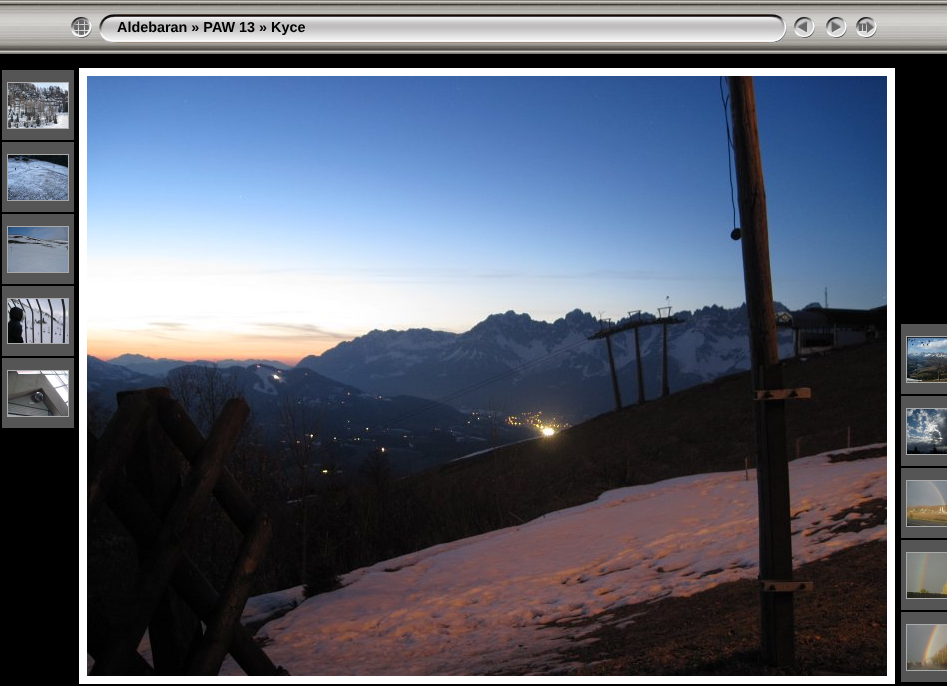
<?xml version="1.0" encoding="UTF-8"?>
<svg xmlns="http://www.w3.org/2000/svg" xmlns:xlink="http://www.w3.org/1999/xlink" width="947" height="686">
  <rect width="100%" height="100%" fill="#000000" />
  <image x="0" y="0" width="947" height="54" xlink:href="image1.png" />
  <image x="70" y="17" width="22" height="21" xlink:href="image2.png" />
  <image x="99" y="14" width="18" height="29" xlink:href="image3.png" />
  <image x="117" y="14" width="652" height="29" xlink:href="image4.png" />
  <image x="769" y="14" width="18" height="29" xlink:href="image5.png" />
  <image x="793" y="17" width="22" height="21" xlink:href="image6.png" />
  <image x="825" y="17" width="22" height="21" xlink:href="image7.png" />
  <image x="855" y="17" width="22" height="21" xlink:href="image8.png" />
  <rect x="2" y="70" width="72" height="70" fill="#555555" />
  <rect x="7.5" y="82.5" width="61" height="46" fill="none" stroke="#aaaaaa" />
  <image x="8" y="83" width="60" height="45" xlink:href="image9.png" />
  <rect x="2" y="142" width="72" height="70" fill="#555555" />
  <rect x="7.5" y="154.5" width="61" height="46" fill="none" stroke="#aaaaaa" />
  <image x="8" y="155" width="60" height="45" xlink:href="image10.png" />
  <rect x="2" y="214" width="72" height="70" fill="#555555" />
  <rect x="7.5" y="226.5" width="61" height="46" fill="none" stroke="#aaaaaa" />
  <image x="8" y="227" width="60" height="45" xlink:href="image11.png" />
  <rect x="2" y="286" width="72" height="70" fill="#555555" />
  <rect x="7.5" y="298.5" width="61" height="45" fill="none" stroke="#aaaaaa" />
  <image x="8" y="299" width="60" height="44" xlink:href="image12.png" />
  <rect x="2" y="358" width="72" height="70" fill="#555555" />
  <rect x="7.5" y="370.5" width="61" height="46" fill="none" stroke="#aaaaaa" />
  <image x="8" y="371" width="60" height="45" xlink:href="image13.png" />
  <rect x="83" y="72" width="808" height="608" fill="none" stroke="#ffffff" stroke-width="8" />
  <image x="87" y="76" width="800" height="600" xlink:href="image14.png" />
  <rect x="901" y="324" width="46" height="70" fill="#555555" />
  <rect x="906.5" y="336.5" width="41" height="46" fill="none" stroke="#aaaaaa" />
  <image x="907" y="337" width="40" height="45" xlink:href="image15.png" />
  <rect x="901" y="396" width="46" height="70" fill="#555555" />
  <rect x="906.5" y="408.5" width="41" height="46" fill="none" stroke="#aaaaaa" />
  <image x="907" y="409" width="40" height="45" xlink:href="image16.png" />
  <rect x="901" y="468" width="46" height="70" fill="#555555" />
  <rect x="906.5" y="480.5" width="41" height="46" fill="none" stroke="#aaaaaa" />
  <image x="907" y="481" width="40" height="45" xlink:href="image17.png" />
  <rect x="901" y="540" width="46" height="70" fill="#555555" />
  <rect x="906.5" y="552.5" width="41" height="46" fill="none" stroke="#aaaaaa" />
  <image x="907" y="553" width="40" height="45" xlink:href="image18.png" />
  <rect x="901" y="612" width="46" height="70" fill="#555555" />
  <rect x="906.5" y="624.5" width="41" height="46" fill="none" stroke="#aaaaaa" />
  <image x="907" y="625" width="40" height="45" xlink:href="image19.png" />
  <text x="117" y="32" style="font-family: Liberation Sans; font-size: 14.4px; font-weight: bold; fill: #000000">Aldebaran » PAW 13 » Kyce</text>
</svg>
